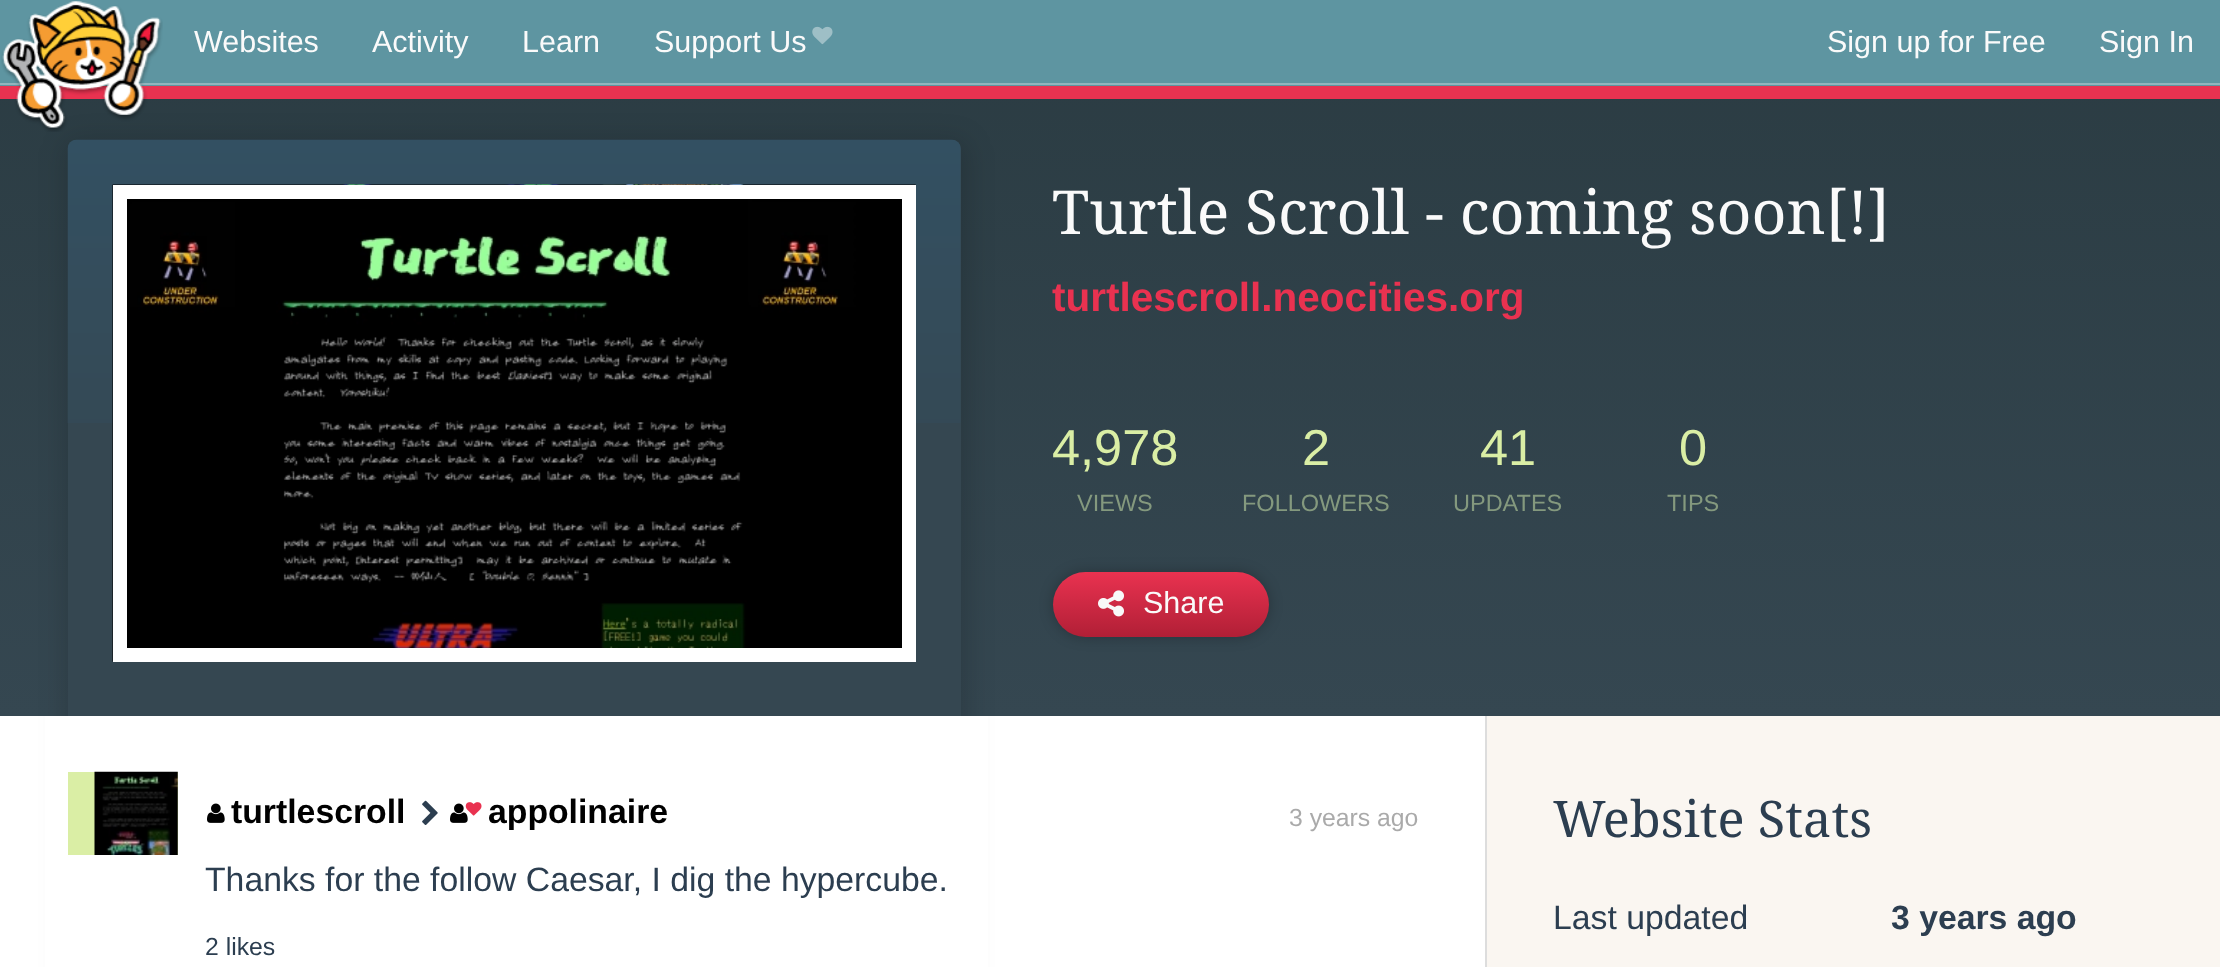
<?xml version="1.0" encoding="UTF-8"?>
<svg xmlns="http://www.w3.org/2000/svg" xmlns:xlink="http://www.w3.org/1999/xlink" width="2220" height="967">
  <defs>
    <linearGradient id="g1" gradientUnits="userSpaceOnUse" x1="1110" y1="49" x2="1110" y2="716"><stop offset="0" stop-color="#2b3c43" /><stop offset="1" stop-color="#354751" /></linearGradient>
    <linearGradient id="g2" gradientUnits="userSpaceOnUse" x1="1161" y1="572" x2="1161" y2="637"><stop offset="0" stop-color="#e93250" /><stop offset="1" stop-color="#b11f36" /></linearGradient>
  </defs>
  <rect width="100%" height="100%" fill="#ffffff" />
  <rect y="99" width="2220" height="617" fill="url(#g1)" />
  <rect x="65" y="140" width="903" height="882" rx="14" fill="#000000" fill-opacity="0.15" filter="blur(13.5px)" />
  <rect y="86" width="2220" height="13" fill="#e93250" />
  <rect width="2220" height="86" fill="#5e95a1" />
  <rect y="83" width="2220" height="2" fill="#92b4bd" />
  <image x="1" y="1" width="162" height="131" xlink:href="image1.png" />
  <image x="812" y="26" width="21" height="19" xlink:href="image2.png" />
  <path d="M 77 140 h 875 c 5 0 9 4 9 9 v 567 h -893 v -567 c 0 -5 4 -9 9 -9 z" fill="#354751" />
  <image x="67" y="139" width="894" height="284" xlink:href="image3.png" />
  <image x="112" y="184" width="804" height="478" xlink:href="image4.png" />
  <rect x="120" y="192" width="789" height="463" fill="none" stroke="#ffffff" stroke-width="14" />
  <rect x="1053" y="572" width="216" height="65" rx="32.5" fill="#000000" fill-opacity="0.25" filter="blur(7px)" />
  <rect x="1053" y="572" width="216" height="65" rx="32.5" fill="url(#g2)" />
  <image x="1098" y="590" width="26" height="27" xlink:href="image5.png" />
  <rect x="1487" y="716" width="733" height="251" fill="#faf6f1" />
  <rect x="1485" y="716" width="2" height="251" fill="#dddddd" />
  <rect x="45" y="716" width="943" height="251" fill="#ffffff" />
  <rect x="68" y="772" width="110" height="83" fill="#daeea5" />
  <image x="94" y="771" width="84" height="84" xlink:href="image6.png" />
  <image x="207" y="803" width="18" height="20" xlink:href="image7.png" />
  <image x="422" y="800" width="16" height="25" xlink:href="image8.png" />
  <image x="450" y="803" width="18" height="20" xlink:href="image7.png" />
  <image x="465" y="802" width="17" height="14" xlink:href="image9.png" />
  <text x="194" y="52" style="font-family: Liberation Sans; font-size: 30.5px; fill: #fafafa">Websites</text>
  <text x="372" y="52" style="font-family: Liberation Sans; font-size: 30.5px; fill: #fafafa">Activity</text>
  <text x="522" y="52" style="font-family: Liberation Sans; font-size: 30.5px; fill: #fafafa">Learn</text>
  <text x="654" y="52" style="font-family: Liberation Sans; font-size: 30.5px; fill: #fafafa">Support Us</text>
  <text x="1827" y="52" style="font-family: Liberation Sans; font-size: 30.5px; fill: #fafafa">Sign up for Free</text>
  <text x="2099" y="52" style="font-family: Liberation Sans; font-size: 30.5px; fill: #fafafa">Sign In</text>
  <text x="1052" y="234" style="font-family: Droid Serif; font-size: 60.75px; fill: #fafafa">Turtle Scroll - coming soon[!]</text>
  <text x="1052" y="311" style="font-family: Liberation Sans; font-size: 40.5px; font-weight: bold; fill: #e93250">turtlescroll.neocities.org</text>
  <text x="1052" y="465" style="font-family: Liberation Sans; font-size: 50.5px; fill: #daeea5">4,978</text>
  <text x="1077" y="511" style="font-family: Liberation Sans; font-size: 23.5px; fill: #84997e">VIEWS</text>
  <text x="1302" y="465" style="font-family: Liberation Sans; font-size: 50.5px; fill: #daeea5">2</text>
  <text x="1242" y="511" style="font-family: Liberation Sans; font-size: 23.5px; fill: #84997e">FOLLOWERS</text>
  <text x="1480" y="465" style="font-family: Liberation Sans; font-size: 50.5px; fill: #daeea5">41</text>
  <text x="1453" y="511" style="font-family: Liberation Sans; font-size: 23.5px; fill: #84997e">UPDATES</text>
  <text x="1679" y="465" style="font-family: Liberation Sans; font-size: 50.5px; fill: #daeea5">0</text>
  <text x="1667" y="511" style="font-family: Liberation Sans; font-size: 23.5px; fill: #84997e">TIPS</text>
  <text x="1143" y="613" style="font-family: Liberation Sans; font-size: 30.5px; fill: #fafafa">Share</text>
  <text x="231" y="823" style="font-family: Liberation Sans; font-size: 33.75px; font-weight: bold; fill: #000000">turtlescroll</text>
  <text x="488" y="823" style="font-family: Liberation Sans; font-size: 33.75px; font-weight: bold; fill: #000000">appolinaire</text>
  <text x="1289" y="826" style="font-family: Liberation Sans; font-size: 24.75px; fill: #aaaaaa">3 years ago</text>
  <text x="205" y="891" style="font-family: Liberation Sans; font-size: 33.75px; fill: #2c3e50">Thanks for the follow Caesar, I dig the hypercube.</text>
  <text x="205" y="955" style="font-family: Liberation Sans; font-size: 24.75px; fill: #2c3e50">2 likes</text>
  <text x="1553" y="837" style="font-family: Droid Serif; font-size: 50.5px; fill: #2c3e50">Website Stats</text>
  <text x="1553" y="929" style="font-family: Liberation Sans; font-size: 33.75px; fill: #2c3e50">Last updated</text>
  <text x="1891" y="929" style="font-family: Liberation Sans; font-size: 33.75px; font-weight: bold; fill: #2c3e50">3 years ago</text>
</svg>
